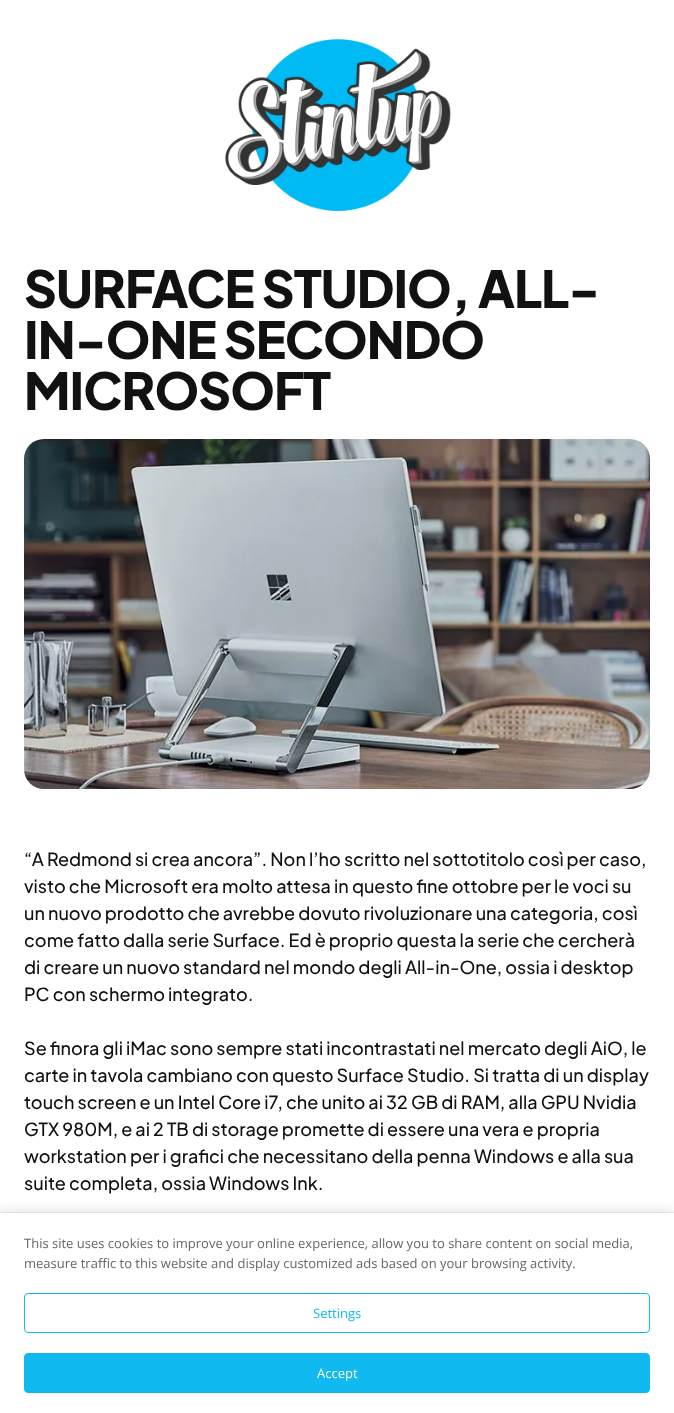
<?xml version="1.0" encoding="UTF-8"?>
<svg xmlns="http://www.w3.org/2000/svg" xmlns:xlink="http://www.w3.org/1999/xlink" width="674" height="1413">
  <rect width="100%" height="100%" fill="#ffffff" />
  <image x="225" y="39" width="226" height="173" xlink:href="image1.png" />
  <image x="24" y="439" width="626" height="350" xlink:href="image2.png" />
  <rect x="24" y="439" width="626" height="350" rx="20" fill="#000000" fill-opacity="0.1" />
  <rect x="-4" y="1219" width="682" height="188" fill="#242f42" fill-opacity="0.31" filter="blur(10px)" />
  <rect x="-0.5" y="1212.5" width="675" height="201" fill="none" stroke="#242f42" stroke-opacity="0.08" />
  <rect y="1213" width="674" height="200" fill="#ffffff" />
  <rect x="24.5" y="1293.5" width="625" height="39" rx="3.5" fill="none" stroke="#10baf0" />
  <rect x="24.5" y="1353.5" width="625" height="39" rx="3.5" fill="#10baf0" stroke="#10baf0" />
  <text x="24" y="308" style="font-family: Plus Jakarta Sans; font-size: 51px; font-weight: 800; letter-spacing: -1px; fill: #111111">SURFACE STUDIO, ALL-</text>
  <text x="24" y="359" style="font-family: Plus Jakarta Sans; font-size: 51px; font-weight: 800; letter-spacing: -1px; fill: #111111">IN-ONE SECONDO</text>
  <text x="24" y="410" style="font-family: Plus Jakarta Sans; font-size: 51px; font-weight: 800; letter-spacing: -1px; fill: #111111">MICROSOFT</text>
  <text x="24" y="866" style="font-family: Plus Jakarta Sans; font-size: 18px; font-weight: 500; fill: #111111">“A Redmond si crea ancora”. Non l’ho scritto nel sottotitolo così per caso,</text>
  <text x="24" y="893" style="font-family: Plus Jakarta Sans; font-size: 18px; font-weight: 500; fill: #111111">visto che Microsoft era molto attesa in questo fine ottobre per le voci su</text>
  <text x="24" y="920" style="font-family: Plus Jakarta Sans; font-size: 18px; font-weight: 500; fill: #111111">un nuovo prodotto che avrebbe dovuto rivoluzionare una categoria, così</text>
  <text x="24" y="947" style="font-family: Plus Jakarta Sans; font-size: 18px; font-weight: 500; fill: #111111">come fatto dalla serie Surface. Ed è proprio questa la serie che cercherà</text>
  <text x="24" y="974" style="font-family: Plus Jakarta Sans; font-size: 18px; font-weight: 500; fill: #111111">di creare un nuovo standard nel mondo degli All-in-One, ossia i desktop</text>
  <text x="24" y="1001" style="font-family: Plus Jakarta Sans; font-size: 18px; font-weight: 500; fill: #111111">PC con schermo integrato.</text>
  <text x="24" y="1055" style="font-family: Plus Jakarta Sans; font-size: 18px; font-weight: 500; fill: #111111">Se finora gli iMac sono sempre stati incontrastati nel mercato degli AiO, le</text>
  <text x="24" y="1082" style="font-family: Plus Jakarta Sans; font-size: 18px; font-weight: 500; fill: #111111">carte in tavola cambiano con questo Surface Studio. Si tratta di un display</text>
  <text x="24" y="1109" style="font-family: Plus Jakarta Sans; font-size: 18px; font-weight: 500; fill: #111111">touch screen e un Intel Core i7, che unito ai 32 GB di RAM, alla GPU Nvidia</text>
  <text x="24" y="1136" style="font-family: Plus Jakarta Sans; font-size: 18px; font-weight: 500; fill: #111111">GTX 980M, e ai 2 TB di storage promette di essere una vera e propria</text>
  <text x="24" y="1163" style="font-family: Plus Jakarta Sans; font-size: 18px; font-weight: 500; fill: #111111">workstation per i grafici che necessitano della penna Windows e alla sua</text>
  <text x="24" y="1190" style="font-family: Plus Jakarta Sans; font-size: 18px; font-weight: 500; fill: #111111">suite completa, ossia Windows Ink.</text>
  <text x="24" y="1248" style="font-family: Open Sans; font-size: 13px; fill: #666666">This site uses cookies to improve your online experience, allow you to share content on social media,</text>
  <text x="24" y="1268" style="font-family: Open Sans; font-size: 13px; fill: #666666">measure traffic to this website and display customized ads based on your browsing activity.</text>
  <text x="313" y="1318" style="font-family: Open Sans; font-size: 13px; fill: #10baf0">Settings</text>
  <text x="317" y="1378" style="font-family: Open Sans; font-size: 13px; fill: #ffffff">Accept</text>
</svg>
